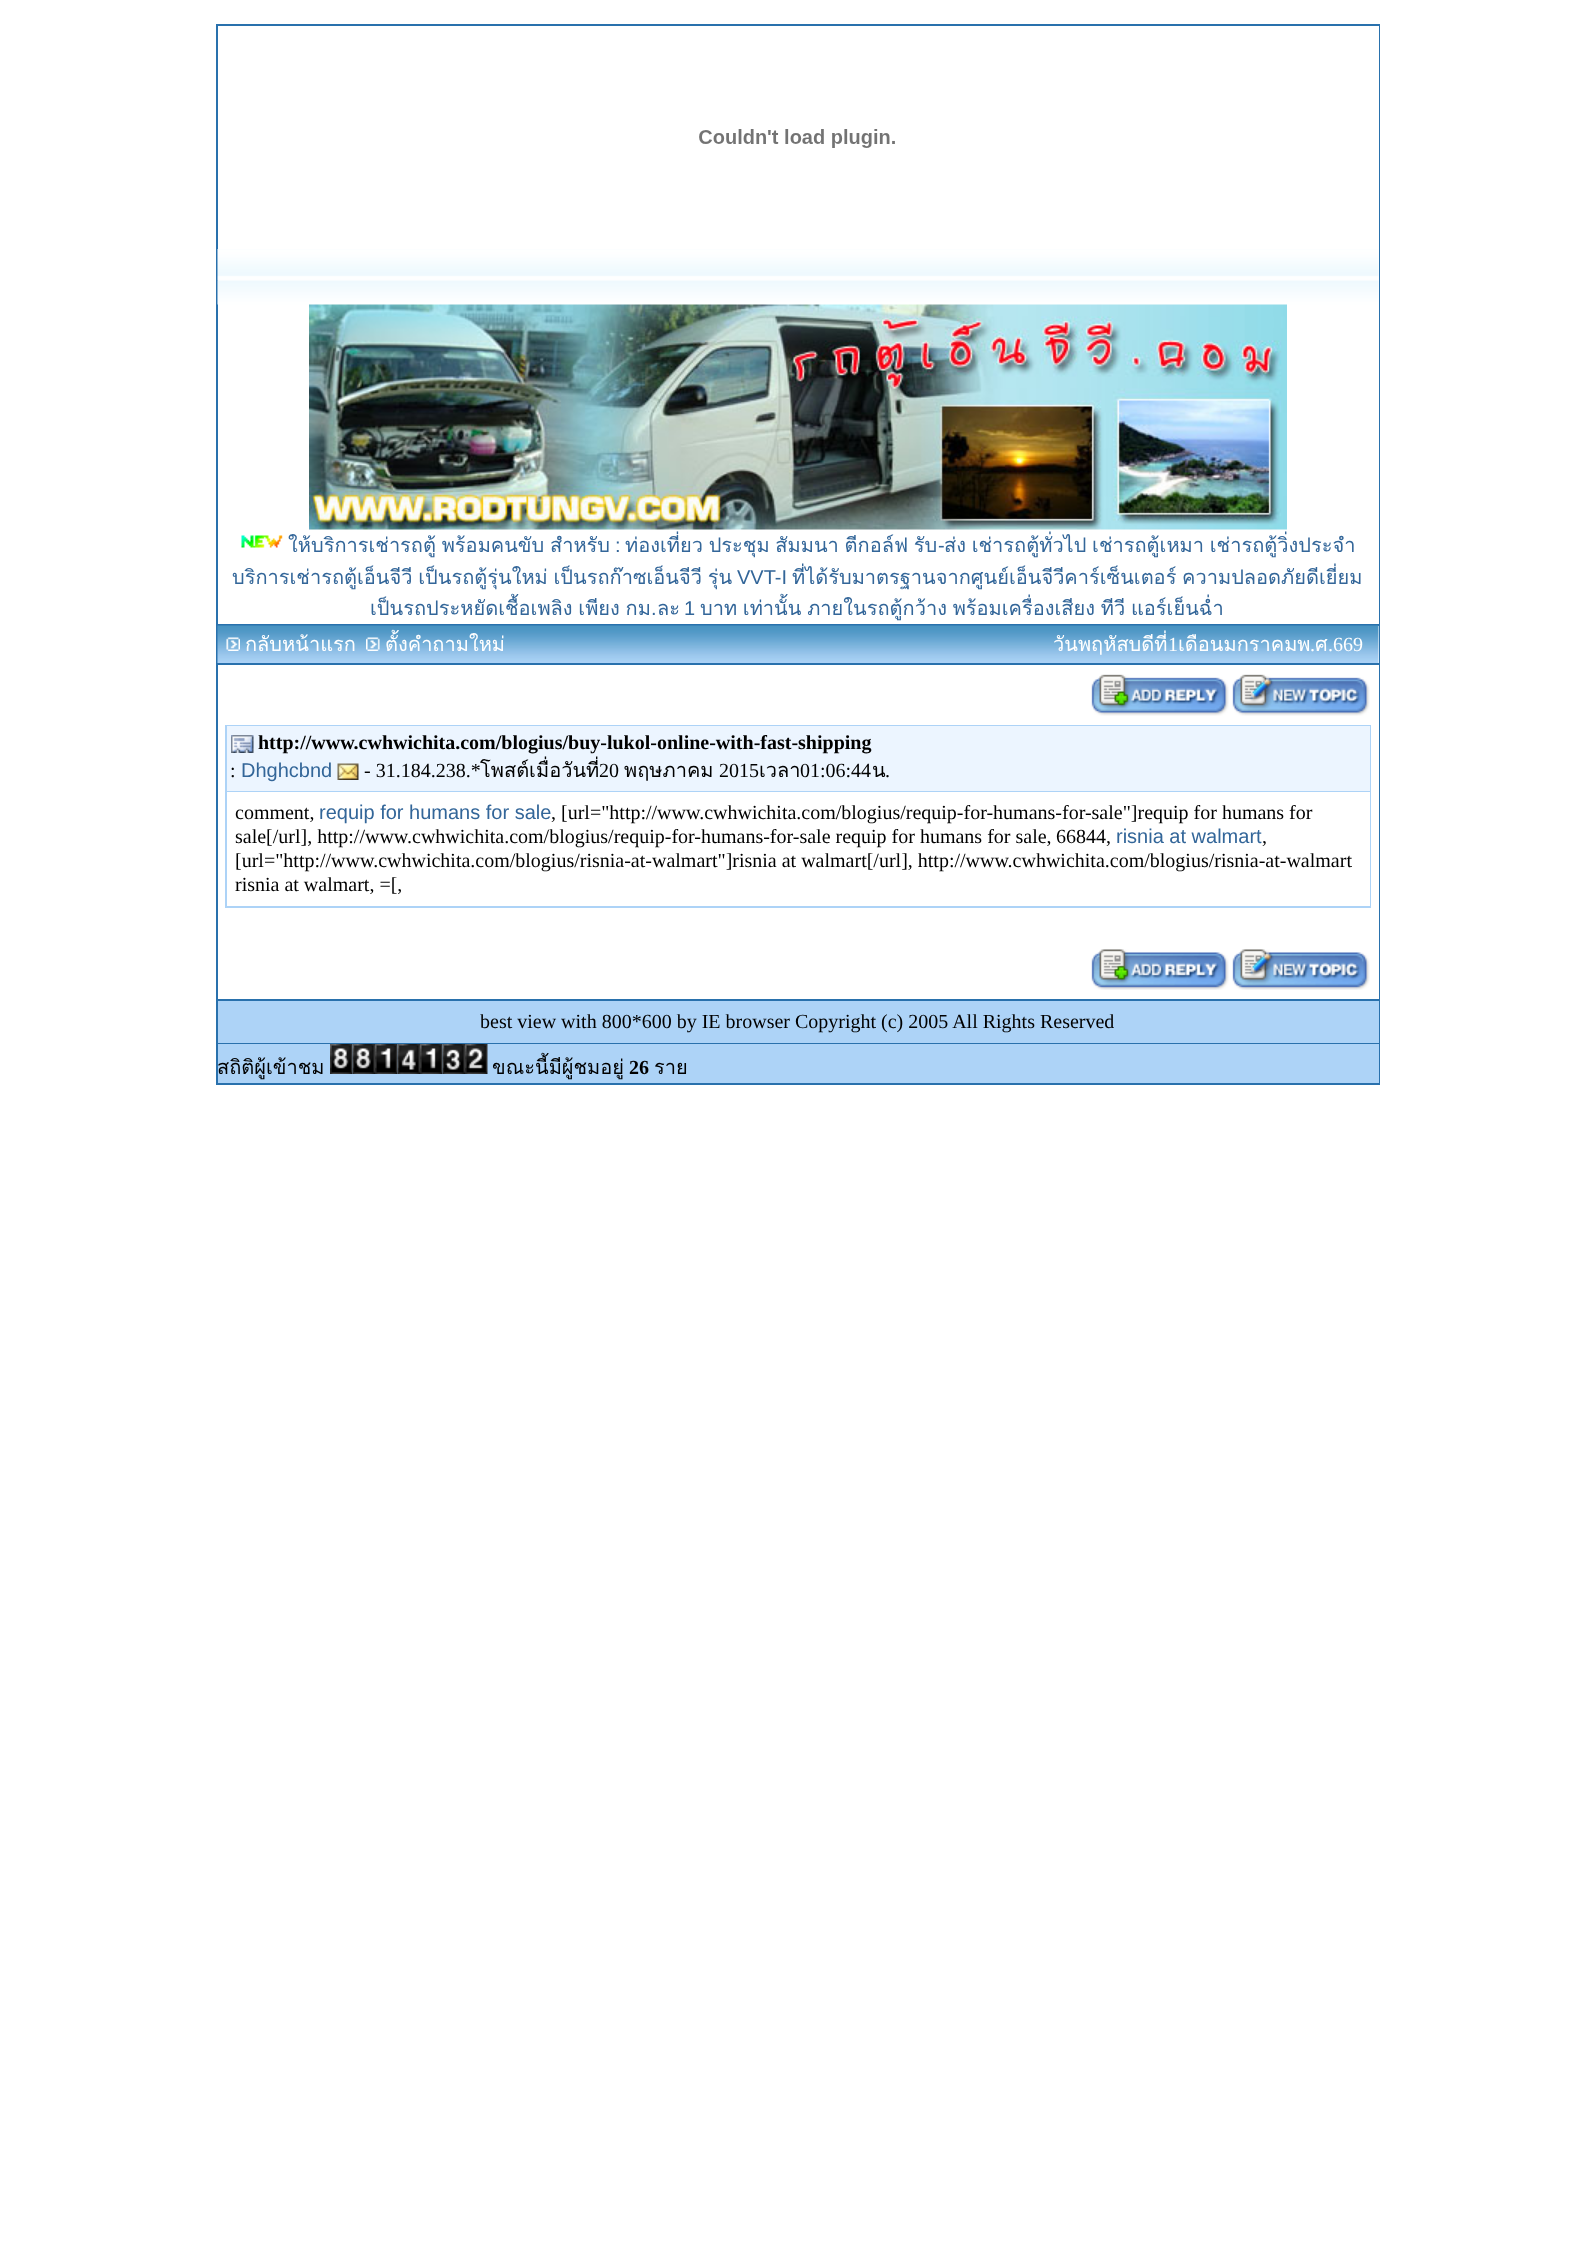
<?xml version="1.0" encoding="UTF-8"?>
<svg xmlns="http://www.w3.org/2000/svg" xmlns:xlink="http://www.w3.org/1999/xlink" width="1594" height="2242">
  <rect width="100%" height="100%" fill="#ffffff" />
  <rect x="216" y="24" width="1164" height="1061" fill="#2971ad" />
  <rect x="218" y="26" width="1161" height="598" fill="#ffffff" />
  <image x="699" y="129" width="196" height="19" xlink:href="image1.png" />
  <image x="217" y="249" width="1162" height="32" xlink:href="image2.png" />
  <image x="217" y="280" width="1162" height="25" xlink:href="image3.png" />
  <image x="309" y="304" width="978" height="226" xlink:href="image4.png" />
  <image x="241" y="535" width="42" height="13" xlink:href="image5.png" />
  <rect x="1378" y="626" width="1" height="37" fill="#ffffff" />
  <image x="217" y="625" width="1162" height="38" xlink:href="image6.png" />
  <image x="226" y="637" width="14" height="14" xlink:href="image7.png" />
  <image x="366" y="637" width="14" height="14" xlink:href="image8.png" />
  <rect x="218" y="665" width="1161" height="334" fill="#ffffff" />
  <image x="1091" y="674" width="138" height="42" xlink:href="image9.png" />
  <image x="1232" y="674" width="138" height="42" xlink:href="image10.png" />
  <rect x="225" y="725" width="1146" height="183" fill="#add3f7" />
  <rect x="227" y="726" width="1143" height="65" fill="#ecf5ff" />
  <image x="231" y="735" width="23" height="18" xlink:href="image11.png" />
  <image x="337" y="763" width="22" height="17" xlink:href="image12.png" />
  <rect x="227" y="792" width="1143" height="114" fill="#ffffff" />
  <image x="1091" y="949" width="138" height="41" xlink:href="image13.png" />
  <image x="1232" y="949" width="138" height="41" xlink:href="image14.png" />
  <rect x="218" y="1001" width="1161" height="42" fill="#add3f7" />
  <rect x="218" y="1044" width="1161" height="39" fill="#add3f7" />
  <image x="330" y="1044" width="23" height="30" xlink:href="image15.png" />
  <image x="352" y="1044" width="23" height="30" xlink:href="image16.png" />
  <image x="375" y="1044" width="23" height="30" xlink:href="image17.png" />
  <image x="397" y="1044" width="23" height="30" xlink:href="image18.png" />
  <image x="420" y="1044" width="23" height="30" xlink:href="image17.png" />
  <image x="442" y="1044" width="23" height="30" xlink:href="image19.png" />
  <image x="465" y="1044" width="23" height="30" xlink:href="image20.png" />
  <text x="288" y="552" word-spacing="-1" style="font-family: Loma; font-size: 20px; fill: #336699">ให้บริการเช่ารถตู้ พร้อมคนขับ สำหรับ</text>
  <text x="615" y="552" style="font-family: Liberation Sans; font-size: 20px; fill: #336699">:</text>
  <text x="625" y="552" word-spacing="-1" style="font-family: Loma; font-size: 20px; fill: #336699">ท่องเที่ยว ประชุม สัมมนา ตีกอล์ฟ รับ</text>
  <text x="938" y="552" style="font-family: Liberation Sans; font-size: 20px; fill: #336699">-</text>
  <text x="944" y="552" word-spacing="-1" style="font-family: Loma; font-size: 20px; fill: #336699">ส่ง เช่ารถตู้ทั่วไป เช่ารถตู้เหมา เช่ารถตู้วิ่งประจำ</text>
  <text x="232" y="584" word-spacing="-1" style="font-family: Loma; font-size: 20px; fill: #336699">บริการเช่ารถตู้เอ็นจีวี เป็นรถตู้รุ่นใหม่ เป็นรถก๊าซเอ็นจีวี รุ่น</text>
  <text x="737" y="584" style="font-family: Liberation Sans; font-size: 20px; fill: #336699">VVT-I</text>
  <text x="792" y="584" word-spacing="-1" style="font-family: Loma; font-size: 20px; fill: #336699">ที่ได้รับมาตรฐานจากศูนย์เอ็นจีวีคาร์เซ็นเตอร์ ความปลอดภัยดีเยี่ยม</text>
  <text x="370" y="615" word-spacing="-1" style="font-family: Loma; font-size: 20px; fill: #336699">เป็นรถประหยัดเชื้อเพลิง เพียง กม</text>
  <text x="651" y="615" style="font-family: Liberation Sans; font-size: 20px; fill: #336699">.</text>
  <text x="657" y="615" style="font-family: Loma; font-size: 20px; fill: #336699">ละ</text>
  <text x="684" y="615" style="font-family: Liberation Sans; font-size: 20px; fill: #336699">1</text>
  <text x="700" y="615" word-spacing="-1" style="font-family: Loma; font-size: 20px; fill: #336699">บาท เท่านั้น ภายในรถตู้กว้าง พร้อมเครื่องเสียง ทีวี แอร์เย็นฉ่ำ</text>
  <text x="245" y="651" style="font-family: Loma; font-size: 20px; fill: #ffffff">กลับหน้าแรก</text>
  <text x="385" y="651" style="font-family: Loma; font-size: 20px; fill: #ffffff">ตั้งคำถามใหม่</text>
  <text x="1053" y="651" style="font-family: Loma; font-size: 20px; fill: #ffffff">วันพฤหัสบดีที่</text>
  <text x="1168" y="651" style="font-family: Liberation Serif; font-size: 20px; fill: #ffffff">1</text>
  <text x="1178" y="651" style="font-family: Loma; font-size: 20px; fill: #ffffff">เดือนมกราคมพ</text>
  <text x="1310" y="651" style="font-family: Liberation Serif; font-size: 20px; fill: #ffffff">.</text>
  <text x="1315" y="651" style="font-family: Loma; font-size: 20px; fill: #ffffff">ศ</text>
  <text x="1328" y="651" style="font-family: Liberation Serif; font-size: 20px; fill: #ffffff">.669</text>
  <text x="258" y="749" style="font-family: Liberation Serif; font-size: 20px; font-weight: bold; fill: #000000">http://www.cwhwichita.com/blogius/buy-lukol-online-with-fast-shipping</text>
  <text x="230" y="777" style="font-family: Liberation Serif; font-size: 20px; fill: #000000">:</text>
  <text x="241" y="777" style="font-family: Liberation Sans; font-size: 20px; fill: #336699">Dhghcbnd</text>
  <text x="364" y="777" style="font-family: Liberation Serif; font-size: 20px; fill: #000000">- 31.184.238.*</text>
  <text x="480" y="777" style="font-family: Loma; font-size: 20px; fill: #000000">โพสต์เมื่อวันที่</text>
  <text x="599" y="777" style="font-family: Liberation Serif; font-size: 20px; fill: #000000">20</text>
  <text x="624" y="777" style="font-family: Loma; font-size: 20px; fill: #000000">พฤษภาคม</text>
  <text x="719" y="777" style="font-family: Liberation Serif; font-size: 20px; fill: #000000">2015</text>
  <text x="759" y="777" style="font-family: Loma; font-size: 20px; fill: #000000">เวลา</text>
  <text x="800" y="777" style="font-family: Liberation Serif; font-size: 20px; fill: #000000">01:06:44</text>
  <text x="872" y="777" style="font-family: Loma; font-size: 20px; fill: #000000">น</text>
  <text x="885" y="777" style="font-family: Liberation Serif; font-size: 20px; fill: #000000">.</text>
  <text x="235" y="819" style="font-family: Liberation Serif; font-size: 20px; fill: #000000">comment,</text>
  <text x="319" y="819" style="font-family: Liberation Sans; font-size: 20px; fill: #336699">requip for humans for sale</text>
  <text x="551" y="819" style="font-family: Liberation Serif; font-size: 20px; fill: #000000">, [url="http://www.cwhwichita.com/blogius/requip-for-humans-for-sale"]requip for humans for</text>
  <text x="235" y="843" style="font-family: Liberation Serif; font-size: 20px; fill: #000000">sale[/url], http://www.cwhwichita.com/blogius/requip-for-humans-for-sale requip for humans for sale,</text>
  <text x="1056" y="843" style="font-family: Liberation Serif; font-size: 20px; fill: #000000">66844,</text>
  <text x="1116" y="843" style="font-family: Liberation Sans; font-size: 20px; fill: #336699">risnia at walmart</text>
  <text x="1262" y="843" style="font-family: Liberation Serif; font-size: 20px; fill: #000000">,</text>
  <text x="235" y="867" style="font-family: Liberation Serif; font-size: 20px; fill: #000000">[url="http://www.cwhwichita.com/blogius/risnia-at-walmart"]risnia at walmart[/url], http://www.cwhwichita.com/blogius/risnia-at-walmart</text>
  <text x="235" y="891" style="font-family: Liberation Serif; font-size: 20px; fill: #000000">risnia at walmart, =[,</text>
  <text x="480" y="1028" style="font-family: Liberation Serif; font-size: 20px; fill: #000000">best view with 800*600 by IE browser Copyright (c) 2005 All Rights Reserved</text>
  <text x="217" y="1074" style="font-family: Loma; font-size: 20px; fill: #000000">สถิติผู้เข้าชม</text>
  <text x="492" y="1074" style="font-family: Loma; font-size: 20px; fill: #000000">ขณะนี้มีผู้ชมอยู่</text>
  <text x="629" y="1074" style="font-family: Liberation Serif; font-size: 20px; font-weight: bold; fill: #000000">26</text>
  <text x="654" y="1074" style="font-family: Loma; font-size: 20px; fill: #000000">ราย</text>
</svg>
